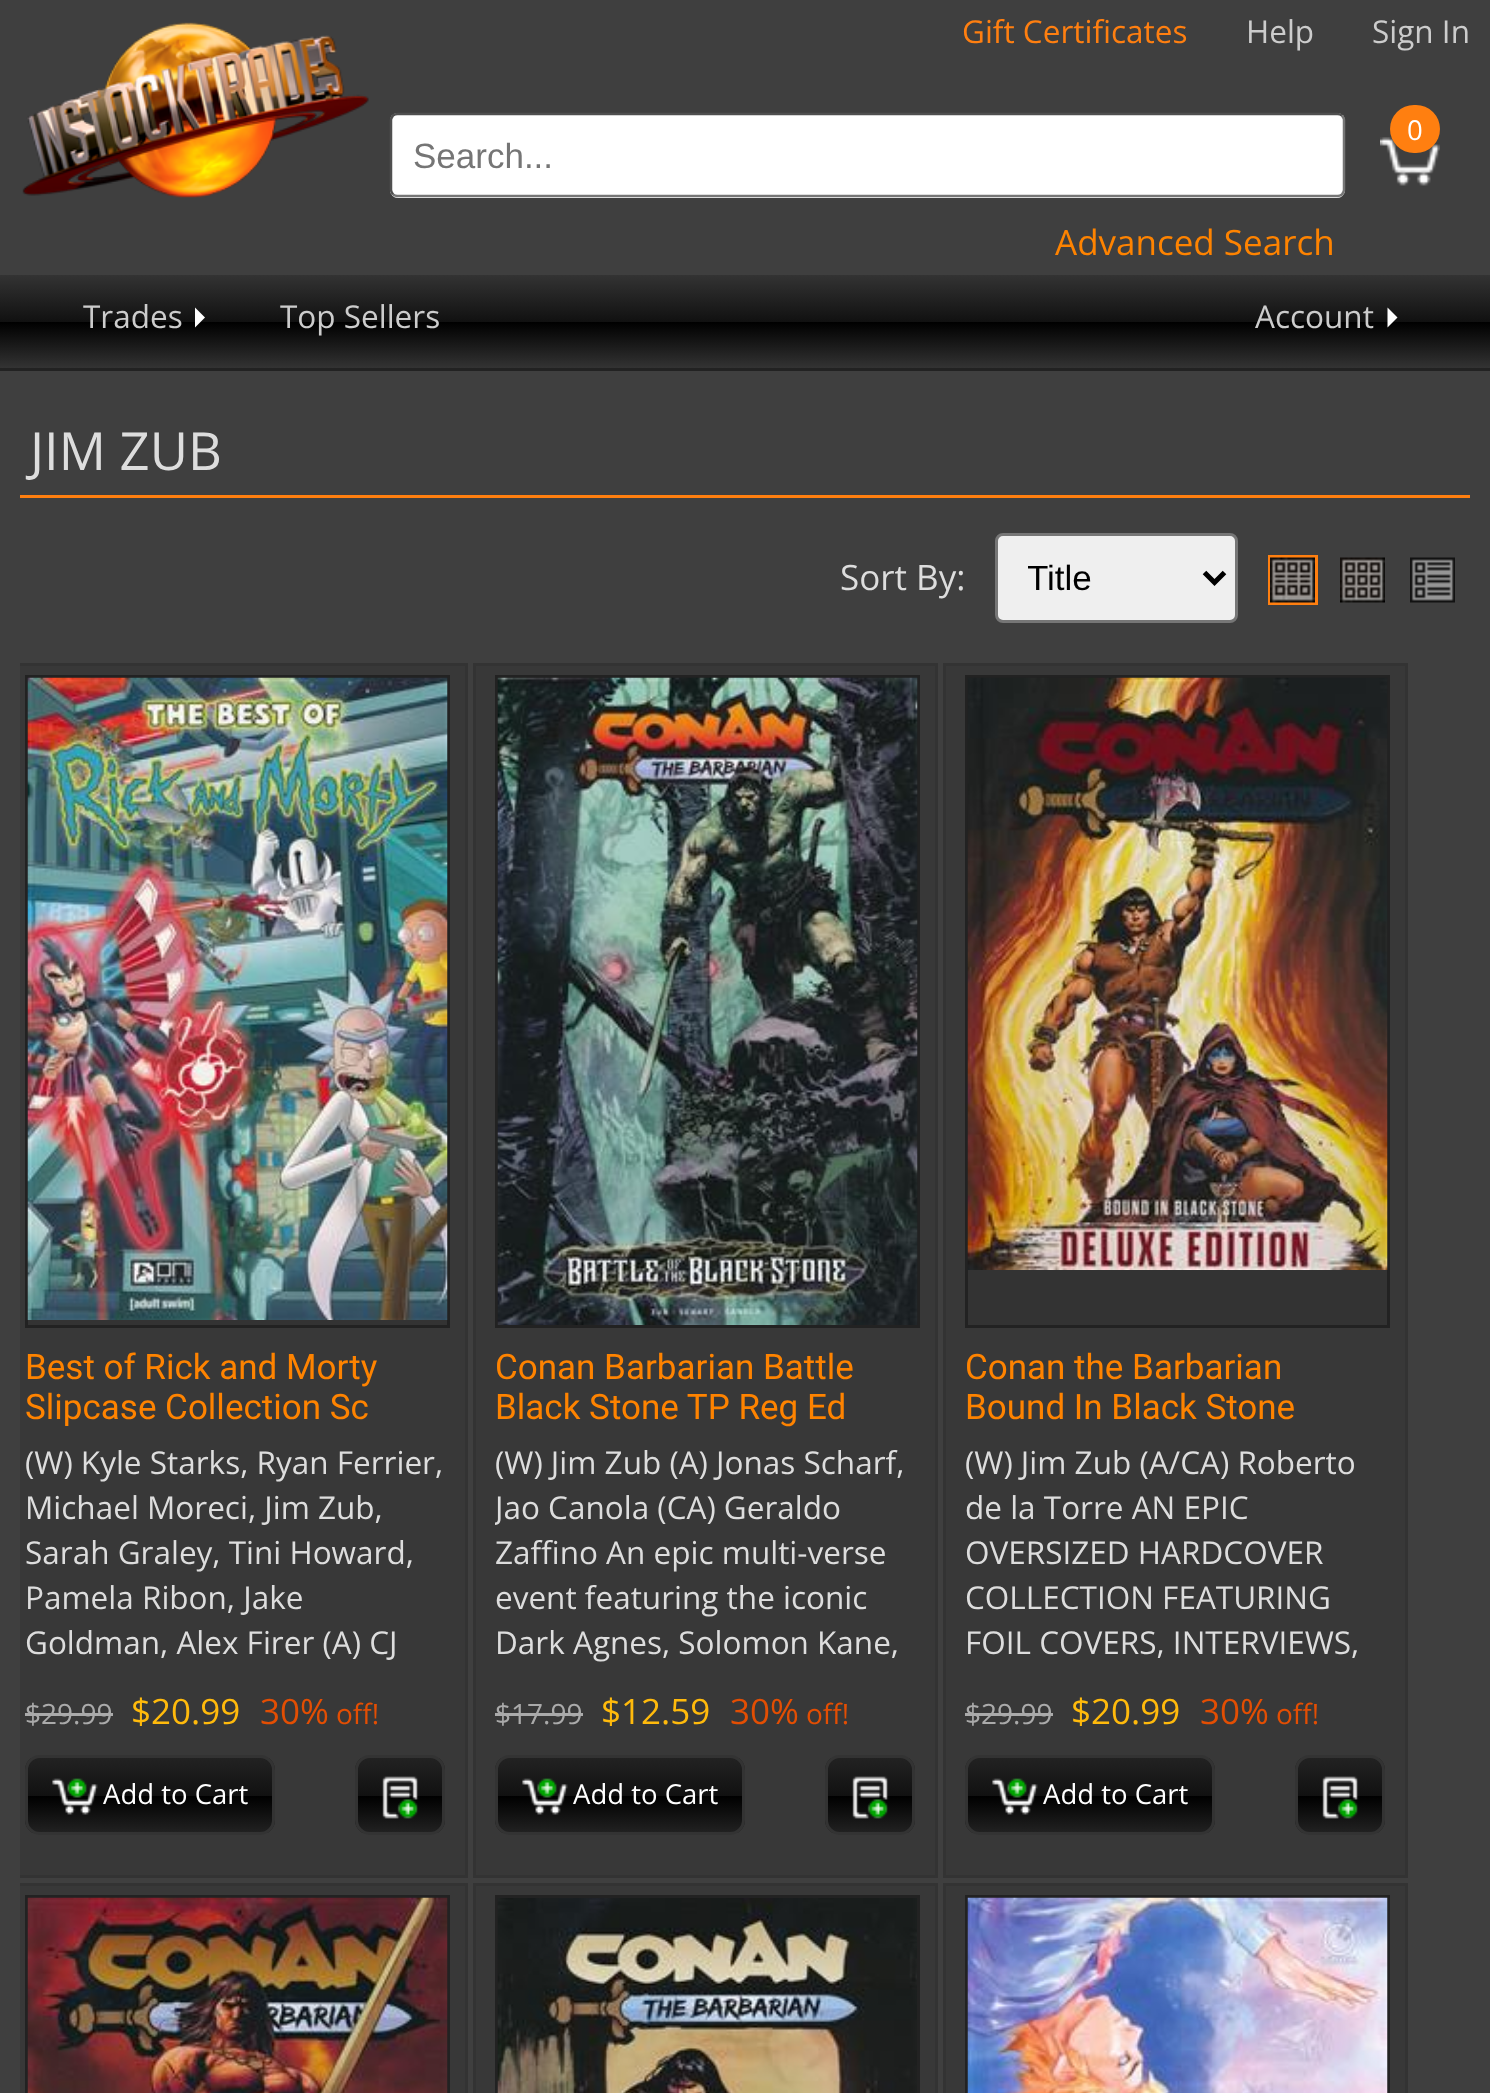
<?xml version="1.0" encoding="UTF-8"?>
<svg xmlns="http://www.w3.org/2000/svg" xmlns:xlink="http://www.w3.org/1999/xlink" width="1490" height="2093">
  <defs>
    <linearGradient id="g1" gradientUnits="userSpaceOnUse" x1="745" y1="275" x2="745" y2="368"><stop offset="0" stop-color="#333333" /><stop offset="0.5" stop-color="#111111" /><stop offset="0.51" stop-color="#000000" /><stop offset="1" stop-color="#333333" /></linearGradient>
    <clipPath id="clip1"><rect x="20" y="380" width="1450" height="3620" /></clipPath>
    <clipPath id="clip2"><rect x="25" y="1755" width="250" height="80" rx="15" /></clipPath>
    <linearGradient id="g2" gradientUnits="userSpaceOnUse" x1="150" y1="1758" x2="150" y2="1833"><stop offset="0" stop-color="#222222" /><stop offset="0.5" stop-color="#111111" /><stop offset="0.51" stop-color="#000000" /><stop offset="1" stop-color="#222222" /></linearGradient>
    <clipPath id="clip3"><rect x="355" y="1755" width="90" height="80" rx="15" /></clipPath>
    <linearGradient id="g3" gradientUnits="userSpaceOnUse" x1="400" y1="1758" x2="400" y2="1833"><stop offset="0" stop-color="#222222" /><stop offset="0.5" stop-color="#111111" /><stop offset="0.51" stop-color="#000000" /><stop offset="1" stop-color="#222222" /></linearGradient>
    <clipPath id="clip4"><rect x="495" y="1755" width="250" height="80" rx="15" /></clipPath>
    <linearGradient id="g4" gradientUnits="userSpaceOnUse" x1="620" y1="1758" x2="620" y2="1833"><stop offset="0" stop-color="#222222" /><stop offset="0.5" stop-color="#111111" /><stop offset="0.51" stop-color="#000000" /><stop offset="1" stop-color="#222222" /></linearGradient>
    <clipPath id="clip5"><rect x="825" y="1755" width="90" height="80" rx="15" /></clipPath>
    <linearGradient id="g5" gradientUnits="userSpaceOnUse" x1="870" y1="1758" x2="870" y2="1833"><stop offset="0" stop-color="#222222" /><stop offset="0.5" stop-color="#111111" /><stop offset="0.51" stop-color="#000000" /><stop offset="1" stop-color="#222222" /></linearGradient>
    <clipPath id="clip6"><rect x="965" y="1755" width="250" height="80" rx="15" /></clipPath>
    <linearGradient id="g6" gradientUnits="userSpaceOnUse" x1="1090" y1="1758" x2="1090" y2="1833"><stop offset="0" stop-color="#222222" /><stop offset="0.5" stop-color="#111111" /><stop offset="0.51" stop-color="#000000" /><stop offset="1" stop-color="#222222" /></linearGradient>
    <clipPath id="clip7"><rect x="1295" y="1755" width="90" height="80" rx="15" /></clipPath>
    <linearGradient id="g7" gradientUnits="userSpaceOnUse" x1="1340" y1="1758" x2="1340" y2="1833"><stop offset="0" stop-color="#222222" /><stop offset="0.5" stop-color="#111111" /><stop offset="0.51" stop-color="#000000" /><stop offset="1" stop-color="#222222" /></linearGradient>
    <clipPath id="clip8"><rect x="1028" y="555" width="147" height="45" /></clipPath>
    <clipPath id="clip9"><rect x="495" y="1443" width="420" height="225" /></clipPath>
  </defs>
  <rect width="100%" height="100%" fill="#3f3f3f" />
  <image x="22" y="22" width="347" height="176" xlink:href="image1.png" />
  <image x="1380" y="137" width="60" height="49" xlink:href="image2.png" />
  <rect x="1390" y="105" width="50" height="48" rx="24" fill="#ff7f10" />
  <rect x="390" y="113" width="955" height="85" rx="8" fill="#ffffff" />
  <path d="M 1342 115.5 c 1 1.5 2 3 2 4.5 v 70 c 0 1.5 -1 3 -2 4.5 c -1.5 1 -3 1.5 -4.5 1.5 h -940 c -1.5 0 -3 -0.5 -4.5 -1.5" fill="none" stroke="#767676" stroke-width="2.5" />
  <path d="M 393 194.5 c -1 -1.5 -2 -3 -2 -4.5 v -70 c 0 -1.5 1 -3 2 -4.5 c 1.5 -1 3 -1.5 4.5 -1.5 h 940 c 1.5 0 3 0.5 4.5 1.5" fill="none" stroke="#4f4f4f" stroke-width="2.5" />
  <rect y="275" width="1490" height="93" fill="url(#g1)" />
  <rect y="368" width="1490" height="3" fill="#222222" />
  <path d="M 195 327.5 v -20 l 10 10 z" fill="#ffffff" />
  <path d="M 1387.5 327.5 v -20 l 10 10 z" fill="#ffffff" />
  <rect x="20" y="495" width="1450" height="3" fill="#ff7f10" />
  <rect x="996.5" y="534.5" width="240" height="87" rx="6.5" fill="#efefef" stroke="#767676" stroke-width="3" />
  <path d="M 1204.5 572.5 l 10 10 l 10 -10" fill="none" stroke="#000000" stroke-width="5" />
  <rect x="1269.5" y="556.5" width="47" height="47" fill="none" stroke="#ff7f10" stroke-width="3" />
  <image x="1270" y="557" width="45" height="46" xlink:href="image3.png" />
  <image x="1340" y="557" width="45" height="46" xlink:href="image4.png" />
  <image x="1410" y="557" width="45" height="46" xlink:href="image5.png" />
  <rect x="20" y="666" width="445" height="1209" fill="#383838" />
  <g clip-path="url(#clip1)">
    <rect x="4.5" y="664.5" width="462" height="1212" fill="none" stroke="#333333" stroke-width="3" />
  </g>
  <rect x="28" y="1320" width="419" height="5" fill="#333333" />
  <rect x="26.5" y="676.5" width="422" height="650" fill="none" stroke="#222222" stroke-width="3" />
  <image x="27" y="677" width="421" height="643" xlink:href="image6.png" />
  <rect x="25" y="1713" width="88" height="3" fill="#aaaaaa" />
  <g clip-path="url(#clip2)">
    <rect x="25" y="1758" width="250" height="75" fill="url(#g2)" />
  </g>
  <rect x="26.5" y="1756.5" width="247" height="77" rx="13.5" fill="none" stroke="#333333" stroke-width="3" />
  <image x="52" y="1778" width="46" height="37" xlink:href="image7.png" />
  <g clip-path="url(#clip3)">
    <rect x="355" y="1758" width="90" height="75" fill="url(#g3)" />
  </g>
  <rect x="356.5" y="1756.5" width="87" height="77" rx="13.5" fill="none" stroke="#333333" stroke-width="3" />
  <image x="382" y="1776" width="37" height="43" xlink:href="image8.png" />
  <rect x="474.5" y="664.5" width="462" height="1212" fill="#383838" stroke="#333333" stroke-width="3" />
  <rect x="496.5" y="676.5" width="422" height="650" fill="none" stroke="#222222" stroke-width="3" />
  <image x="497" y="677" width="421" height="648" xlink:href="image9.png" />
  <rect x="495" y="1713" width="88" height="3" fill="#aaaaaa" />
  <g clip-path="url(#clip4)">
    <rect x="495" y="1758" width="250" height="75" fill="url(#g4)" />
  </g>
  <rect x="496.5" y="1756.5" width="247" height="77" rx="13.5" fill="none" stroke="#333333" stroke-width="3" />
  <image x="522" y="1778" width="46" height="37" xlink:href="image10.png" />
  <g clip-path="url(#clip5)">
    <rect x="825" y="1758" width="90" height="75" fill="url(#g5)" />
  </g>
  <rect x="826.5" y="1756.5" width="87" height="77" rx="13.5" fill="none" stroke="#333333" stroke-width="3" />
  <image x="852" y="1776" width="37" height="43" xlink:href="image8.png" />
  <rect x="944.5" y="664.5" width="462" height="1212" fill="#383838" stroke="#333333" stroke-width="3" />
  <rect x="968" y="1270" width="419" height="55" fill="#333333" />
  <rect x="966.5" y="676.5" width="422" height="650" fill="none" stroke="#222222" stroke-width="3" />
  <image x="967" y="677" width="421" height="593" xlink:href="image11.png" />
  <rect x="965" y="1713" width="88" height="3" fill="#aaaaaa" />
  <g clip-path="url(#clip6)">
    <rect x="965" y="1758" width="250" height="75" fill="url(#g6)" />
  </g>
  <rect x="966.5" y="1756.5" width="247" height="77" rx="13.5" fill="none" stroke="#333333" stroke-width="3" />
  <image x="992" y="1778" width="46" height="37" xlink:href="image7.png" />
  <g clip-path="url(#clip7)">
    <rect x="1295" y="1758" width="90" height="75" fill="url(#g7)" />
  </g>
  <rect x="1296.5" y="1756.5" width="87" height="77" rx="13.5" fill="none" stroke="#333333" stroke-width="3" />
  <image x="1322" y="1776" width="37" height="43" xlink:href="image12.png" />
  <rect x="20" y="1886" width="445" height="207" fill="#383838" />
  <g clip-path="url(#clip1)">
    <rect x="4.5" y="1884.5" width="462" height="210" fill="none" stroke="#333333" stroke-width="3" />
  </g>
  <rect x="26.5" y="1896.5" width="422" height="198" fill="none" stroke="#222222" stroke-width="3" />
  <image x="27" y="1897" width="421" height="196" xlink:href="image13.png" />
  <rect x="474.5" y="1884.5" width="462" height="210" fill="#383838" stroke="#333333" stroke-width="3" />
  <rect x="496.5" y="1896.5" width="422" height="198" fill="none" stroke="#222222" stroke-width="3" />
  <image x="497" y="1898" width="420" height="195" xlink:href="image14.png" />
  <rect x="944.5" y="1884.5" width="462" height="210" fill="#383838" stroke="#333333" stroke-width="3" />
  <rect x="966.5" y="1896.5" width="422" height="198" fill="none" stroke="#222222" stroke-width="3" />
  <image x="967" y="1897" width="421" height="196" xlink:href="image15.png" />
  <text x="962" y="43" style="font-family: Open Sans; font-size: 31.5px; fill: #ff7f10">Gift Certificates</text>
  <text x="1246" y="43" style="font-family: Open Sans; font-size: 31.5px; fill: #cccccc">Help</text>
  <text x="1372" y="43" style="font-family: Open Sans; font-size: 31.5px; fill: #cccccc">Sign In</text>
  <text x="1407" y="140" style="font-family: Open Sans; font-size: 27.5px; fill: #ffffff">0</text>
  <text x="413" y="168" style="font-family: Liberation Sans; font-size: 35px; fill: #757575">Search...</text>
  <text x="1055" y="255" style="font-family: Open Sans; font-size: 35px; fill: #fe8300">Advanced Search</text>
  <text x="83" y="328" style="font-family: Open Sans; font-size: 31.5px; fill: #cccccc">Trades</text>
  <text x="280" y="328" style="font-family: Open Sans; font-size: 31.5px; fill: #cccccc">Top Sellers</text>
  <text x="1255" y="328" style="font-family: Open Sans; font-size: 31.5px; fill: #cccccc">Account</text>
  <text x="30" y="470" style="font-family: Open Sans; font-size: 52.5px; fill: #dddddd">JIM ZUB</text>
  <text x="840" y="590" style="font-family: Open Sans; font-size: 35px; fill: #dddddd">Sort By:</text>
  <g clip-path="url(#clip8)">
    <text x="1027" y="590" style="font-family: Liberation Sans; font-size: 35px; fill: #000000">Title</text>
  </g>
  <text x="25" y="1379" style="font-family: Roboto; font-size: 35px; fill: #fe8300">Best of Rick and Morty</text>
  <text x="25" y="1419" style="font-family: Roboto; font-size: 35px; fill: #fe8300">Slipcase Collection Sc</text>
  <text x="25" y="1474" style="font-family: Open Sans; font-size: 31.5px; fill: #dddddd">(W) Kyle Starks, Ryan Ferrier,</text>
  <text x="25" y="1519" style="font-family: Open Sans; font-size: 31.5px; fill: #dddddd">Michael Moreci, Jim Zub,</text>
  <text x="25" y="1564" style="font-family: Open Sans; font-size: 31.5px; fill: #dddddd">Sarah Graley, Tini Howard,</text>
  <text x="25" y="1609" style="font-family: Open Sans; font-size: 31.5px; fill: #dddddd">Pamela Ribon, Jake</text>
  <text x="25" y="1654" style="font-family: Open Sans; font-size: 31.5px; fill: #dddddd">Goldman, Alex Firer (A) CJ</text>
  <text x="25" y="1724" style="font-family: Open Sans; font-size: 28px; fill: #aaaaaa">$29.99</text>
  <text x="131" y="1724" style="font-family: Open Sans; font-size: 35px; fill: #ffba0c">$20.99</text>
  <text x="260" y="1724" style="font-family: Open Sans; font-size: 35px; fill: #e34e03">30%</text>
  <text x="336" y="1724" style="font-family: Open Sans; font-size: 28px; fill: #e34e03">off!</text>
  <text x="103" y="1804" style="font-family: Open Sans; font-size: 27.5px; fill: #ffffff">Add to Cart</text>
  <text x="495" y="1379" style="font-family: Roboto; font-size: 35px; fill: #fe8300">Conan Barbarian Battle</text>
  <text x="495" y="1419" style="font-family: Roboto; font-size: 35px; fill: #fe8300">Black Stone TP Reg Ed</text>
  <text x="495" y="1474" style="font-family: Open Sans; font-size: 31.5px; fill: #dddddd">(W) Jim Zub (A) Jonas Scharf,</text>
  <g clip-path="url(#clip9)">
    <text x="495" y="1519" style="font-family: Open Sans; font-size: 31.5px; fill: #dddddd">Jao Canola (CA) Geraldo</text>
  </g>
  <text x="495" y="1564" style="font-family: Open Sans; font-size: 31.5px; fill: #dddddd">Zaffino An epic multi-verse</text>
  <text x="495" y="1609" style="font-family: Open Sans; font-size: 31.5px; fill: #dddddd">event featuring the iconic</text>
  <text x="495" y="1654" style="font-family: Open Sans; font-size: 31.5px; fill: #dddddd">Dark Agnes, Solomon Kane,</text>
  <text x="495" y="1724" style="font-family: Open Sans; font-size: 28px; fill: #aaaaaa">$17.99</text>
  <text x="601" y="1724" style="font-family: Open Sans; font-size: 35px; fill: #ffba0c">$12.59</text>
  <text x="730" y="1724" style="font-family: Open Sans; font-size: 35px; fill: #e34e03">30%</text>
  <text x="806" y="1724" style="font-family: Open Sans; font-size: 28px; fill: #e34e03">off!</text>
  <text x="573" y="1804" style="font-family: Open Sans; font-size: 27.5px; fill: #ffffff">Add to Cart</text>
  <text x="965" y="1379" style="font-family: Roboto; font-size: 35px; fill: #fe8300">Conan the Barbarian</text>
  <text x="965" y="1419" style="font-family: Roboto; font-size: 35px; fill: #fe8300">Bound In Black Stone</text>
  <text x="965" y="1474" style="font-family: Open Sans; font-size: 31.5px; fill: #dddddd">(W) Jim Zub (A/CA) Roberto</text>
  <text x="965" y="1519" style="font-family: Open Sans; font-size: 31.5px; fill: #dddddd">de la Torre AN EPIC</text>
  <text x="965" y="1564" style="font-family: Open Sans; font-size: 31.5px; fill: #dddddd">OVERSIZED HARDCOVER</text>
  <text x="965" y="1609" style="font-family: Open Sans; font-size: 31.5px; fill: #dddddd">COLLECTION FEATURING</text>
  <text x="965" y="1654" style="font-family: Open Sans; font-size: 31.5px; fill: #dddddd">FOIL COVERS, INTERVIEWS,</text>
  <text x="965" y="1724" style="font-family: Open Sans; font-size: 28px; fill: #aaaaaa">$29.99</text>
  <text x="1071" y="1724" style="font-family: Open Sans; font-size: 35px; fill: #ffba0c">$20.99</text>
  <text x="1200" y="1724" style="font-family: Open Sans; font-size: 35px; fill: #e34e03">30%</text>
  <text x="1276" y="1724" style="font-family: Open Sans; font-size: 28px; fill: #e34e03">off!</text>
  <text x="1043" y="1804" style="font-family: Open Sans; font-size: 27.5px; fill: #ffffff">Add to Cart</text>
</svg>
